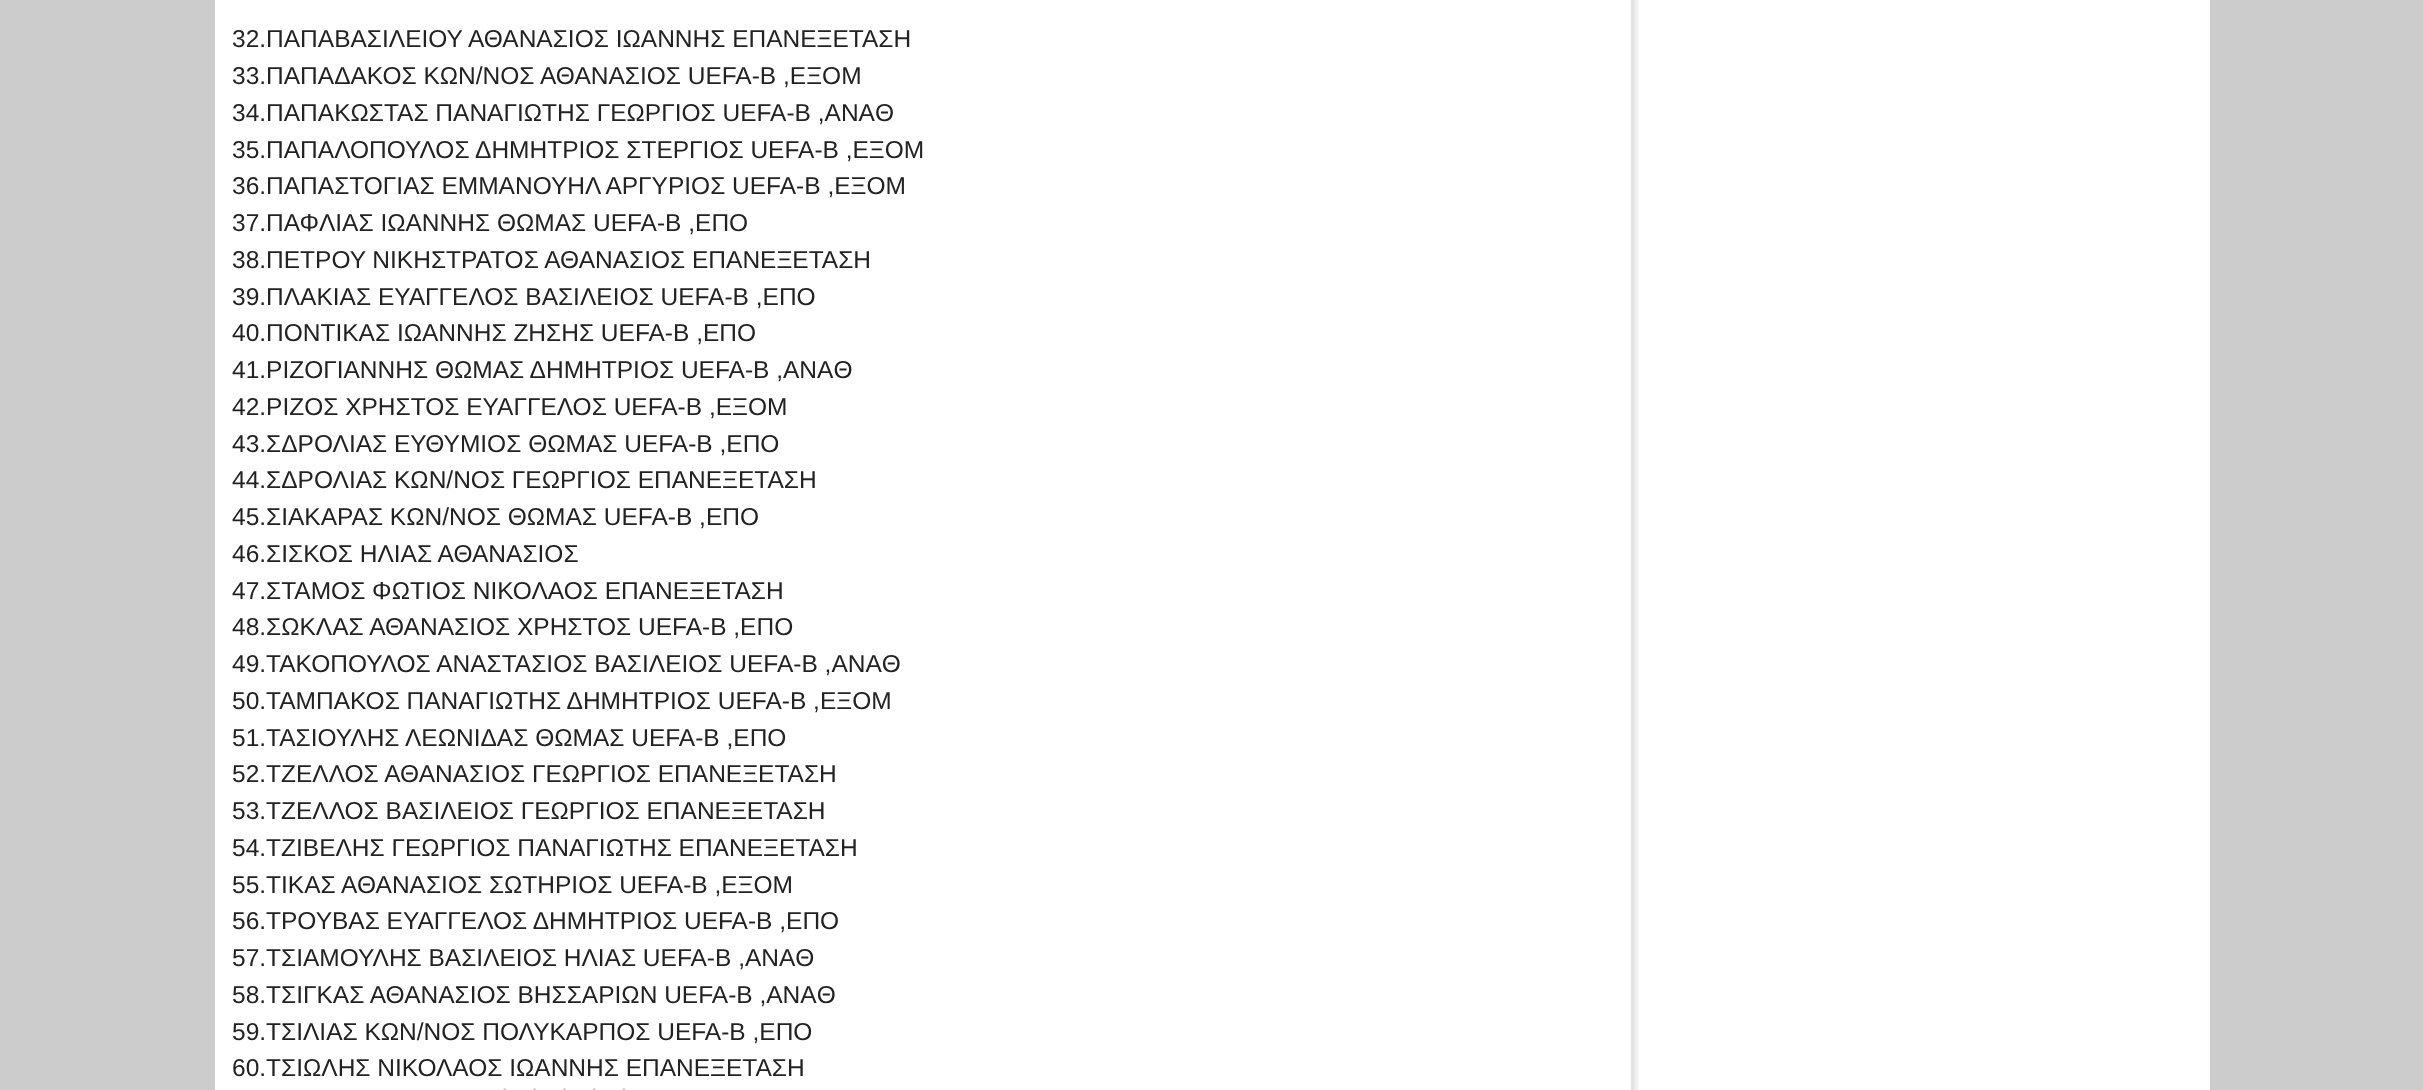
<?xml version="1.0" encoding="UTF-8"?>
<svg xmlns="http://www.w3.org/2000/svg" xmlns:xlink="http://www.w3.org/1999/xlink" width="2423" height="1090">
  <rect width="100%" height="100%" fill="#cccccc" />
  <rect x="215" width="1995" height="1090" fill="#ffffff" />
  <image x="1630" y="0" width="9" height="1090" xlink:href="image1.png" />
  <image x="503" y="1088" width="4" height="2" xlink:href="image2.png" />
  <image x="503" y="1088" width="4" height="2" xlink:href="image3.png" />
  <image x="533" y="1088" width="3" height="2" xlink:href="image4.png" />
  <image x="533" y="1088" width="3" height="2" xlink:href="image5.png" />
  <image x="563" y="1088" width="3" height="2" xlink:href="image6.png" />
  <image x="563" y="1088" width="3" height="2" xlink:href="image7.png" />
  <image x="593" y="1088" width="3" height="2" xlink:href="image8.png" />
  <image x="593" y="1088" width="3" height="2" xlink:href="image9.png" />
  <image x="622" y="1088" width="4" height="2" xlink:href="image2.png" />
  <image x="622" y="1088" width="4" height="2" xlink:href="image3.png" />
  <text x="232" y="47" style="font-family: Liberation Sans; font-size: 24.5px; fill: #222222">32.ΠΑΠΑΒΑΣΙΛΕΙΟΥ ΑΘΑΝΑΣΙΟΣ ΙΩΑΝΝΗΣ ΕΠΑΝΕΞΕΤΑΣΗ</text>
  <text x="232" y="84" style="font-family: Liberation Sans; font-size: 24.5px; fill: #222222">33.ΠΑΠΑΔΑΚΟΣ ΚΩΝ/ΝΟΣ ΑΘΑΝΑΣΙΟΣ UEFA-B ,ΕΞΟΜ</text>
  <text x="232" y="121" style="font-family: Liberation Sans; font-size: 24.5px; fill: #222222">34.ΠΑΠΑΚΩΣΤΑΣ ΠΑΝΑΓΙΩΤΗΣ ΓΕΩΡΓΙΟΣ UEFA-B ,ANAΘ</text>
  <text x="232" y="158" style="font-family: Liberation Sans; font-size: 24.5px; fill: #222222">35.ΠΑΠΑΛΟΠΟΥΛΟΣ ΔΗΜΗΤΡΙΟΣ ΣΤΕΡΓΙΟΣ UEFA-B ,ΕΞΟΜ</text>
  <text x="232" y="194" style="font-family: Liberation Sans; font-size: 24.5px; fill: #222222">36.ΠΑΠΑΣΤΟΓΙΑΣ ΕΜΜΑΝΟΥΗΛ ΑΡΓΥΡΙΟΣ UEFA-B ,ΕΞΟΜ</text>
  <text x="232" y="231" style="font-family: Liberation Sans; font-size: 24.5px; fill: #222222">37.ΠΑΦΛΙΑΣ ΙΩΑΝΝΗΣ ΘΩΜΑΣ UEFA-B ,EΠΟ</text>
  <text x="232" y="268" style="font-family: Liberation Sans; font-size: 24.5px; fill: #222222">38.ΠΕΤΡΟΥ ΝΙΚΗΣΤΡΑΤΟΣ ΑΘΑΝΑΣΙΟΣ ΕΠΑΝΕΞΕΤΑΣΗ</text>
  <text x="232" y="305" style="font-family: Liberation Sans; font-size: 24.5px; fill: #222222">39.ΠΛΑΚΙΑΣ ΕΥΑΓΓΕΛΟΣ ΒΑΣΙΛΕΙΟΣ UEFA-B ,EΠΟ</text>
  <text x="232" y="341" style="font-family: Liberation Sans; font-size: 24.5px; fill: #222222">40.ΠΟΝΤΙΚΑΣ ΙΩΑΝΝΗΣ ΖΗΣΗΣ UEFA-B ,EΠΟ</text>
  <text x="232" y="378" style="font-family: Liberation Sans; font-size: 24.5px; fill: #222222">41.ΡΙΖΟΓΙΑΝΝΗΣ ΘΩΜΑΣ ΔΗΜΗΤΡΙΟΣ UEFA-B ,ANAΘ</text>
  <text x="232" y="415" style="font-family: Liberation Sans; font-size: 24.5px; fill: #222222">42.ΡΙΖΟΣ ΧΡΗΣΤΟΣ ΕΥΑΓΓΕΛΟΣ UEFA-B ,ΕΞΟΜ</text>
  <text x="232" y="452" style="font-family: Liberation Sans; font-size: 24.5px; fill: #222222">43.ΣΔΡΟΛΙΑΣ ΕΥΘΥΜΙΟΣ ΘΩΜΑΣ UEFA-B ,EΠΟ</text>
  <text x="232" y="488" style="font-family: Liberation Sans; font-size: 24.5px; fill: #222222">44.ΣΔΡΟΛΙΑΣ ΚΩΝ/ΝΟΣ ΓΕΩΡΓΙΟΣ ΕΠΑΝΕΞΕΤΑΣΗ</text>
  <text x="232" y="525" style="font-family: Liberation Sans; font-size: 24.5px; fill: #222222">45.ΣΙΑΚΑΡΑΣ ΚΩΝ/ΝΟΣ ΘΩΜΑΣ UEFA-B ,EΠΟ</text>
  <text x="232" y="562" style="font-family: Liberation Sans; font-size: 24.5px; fill: #222222">46.ΣΙΣΚΟΣ ΗΛΙΑΣ ΑΘΑΝΑΣΙΟΣ</text>
  <text x="232" y="599" style="font-family: Liberation Sans; font-size: 24.5px; fill: #222222">47.ΣΤΑΜΟΣ ΦΩΤΙΟΣ ΝΙΚΟΛΑΟΣ ΕΠΑΝΕΞΕΤΑΣΗ</text>
  <text x="232" y="635" style="font-family: Liberation Sans; font-size: 24.5px; fill: #222222">48.ΣΩΚΛΑΣ ΑΘΑΝΑΣΙΟΣ ΧΡΗΣΤΟΣ UEFA-B ,EΠΟ</text>
  <text x="232" y="672" style="font-family: Liberation Sans; font-size: 24.5px; fill: #222222">49.ΤΑΚΟΠΟΥΛΟΣ ΑΝΑΣΤΑΣΙΟΣ ΒΑΣΙΛΕΙΟΣ UEFA-B ,ANAΘ</text>
  <text x="232" y="709" style="font-family: Liberation Sans; font-size: 24.5px; fill: #222222">50.ΤΑΜΠΑΚΟΣ ΠΑΝΑΓΙΩΤΗΣ ΔΗΜΗΤΡΙΟΣ UEFA-B ,ΕΞΟΜ</text>
  <text x="232" y="746" style="font-family: Liberation Sans; font-size: 24.5px; fill: #222222">51.ΤΑΣΙΟΥΛΗΣ ΛΕΩΝΙΔΑΣ ΘΩΜΑΣ UEFA-B ,EΠΟ</text>
  <text x="232" y="782" style="font-family: Liberation Sans; font-size: 24.5px; fill: #222222">52.ΤΖΕΛΛΟΣ ΑΘΑΝΑΣΙΟΣ ΓΕΩΡΓΙΟΣ ΕΠΑΝΕΞΕΤΑΣΗ</text>
  <text x="232" y="819" style="font-family: Liberation Sans; font-size: 24.5px; fill: #222222">53.ΤΖΕΛΛΟΣ ΒΑΣΙΛΕΙΟΣ ΓΕΩΡΓΙΟΣ ΕΠΑΝΕΞΕΤΑΣΗ</text>
  <text x="232" y="856" style="font-family: Liberation Sans; font-size: 24.5px; fill: #222222">54.ΤΖΙΒΕΛΗΣ ΓΕΩΡΓΙΟΣ ΠΑΝΑΓΙΩΤΗΣ ΕΠΑΝΕΞΕΤΑΣΗ</text>
  <text x="232" y="893" style="font-family: Liberation Sans; font-size: 24.5px; fill: #222222">55.ΤΙΚΑΣ ΑΘΑΝΑΣΙΟΣ ΣΩΤΗΡΙΟΣ UEFA-B ,ΕΞΟΜ</text>
  <text x="232" y="929" style="font-family: Liberation Sans; font-size: 24.5px; fill: #222222">56.ΤΡΟΥΒΑΣ ΕΥΑΓΓΕΛΟΣ ΔΗΜΗΤΡΙΟΣ UEFA-B ,EΠΟ</text>
  <text x="232" y="966" style="font-family: Liberation Sans; font-size: 24.5px; fill: #222222">57.ΤΣΙΑΜΟΥΛΗΣ ΒΑΣΙΛΕΙΟΣ ΗΛΙΑΣ UEFA-B ,ANAΘ</text>
  <text x="232" y="1003" style="font-family: Liberation Sans; font-size: 24.5px; fill: #222222">58.ΤΣΙΓΚΑΣ ΑΘΑΝΑΣΙΟΣ ΒΗΣΣΑΡΙΩΝ UEFA-B ,ANAΘ</text>
  <text x="232" y="1040" style="font-family: Liberation Sans; font-size: 24.5px; fill: #222222">59.ΤΣΙΛΙΑΣ ΚΩΝ/ΝΟΣ ΠΟΛΥΚΑΡΠΟΣ UEFA-B ,EΠΟ</text>
  <text x="232" y="1076" style="font-family: Liberation Sans; font-size: 24.5px; fill: #222222">60.ΤΣΙΩΛΗΣ ΝΙΚΟΛΑΟΣ ΙΩΑΝΝΗΣ ΕΠΑΝΕΞΕΤΑΣΗ</text>
</svg>
